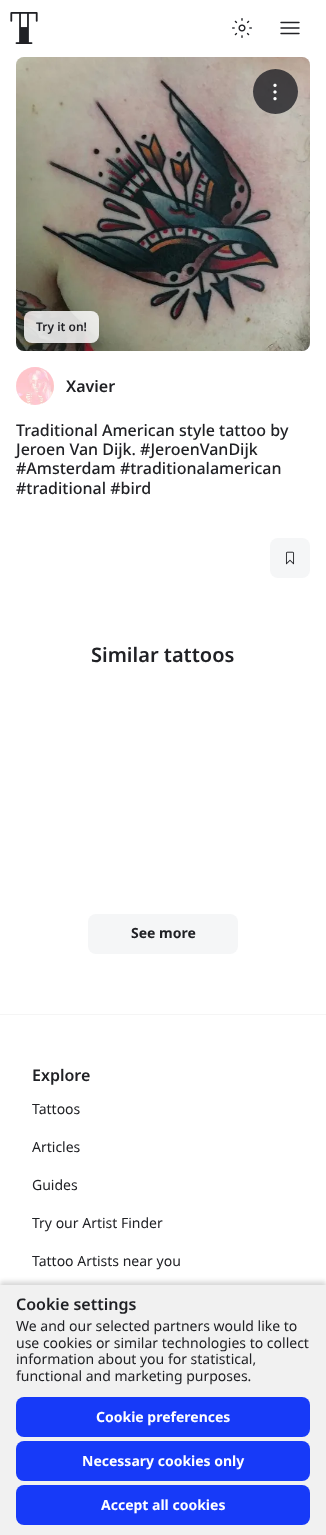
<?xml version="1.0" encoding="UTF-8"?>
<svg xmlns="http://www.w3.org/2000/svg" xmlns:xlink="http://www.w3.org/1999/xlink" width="326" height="1535">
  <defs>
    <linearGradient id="g1" gradientUnits="userSpaceOnUse" x1="-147" y1="247" x2="45" y2="407"><stop offset="0" stop-color="#ffffff" stop-opacity="0.19" /><stop offset="0.25" stop-color="#ffffff" stop-opacity="0.19" /><stop offset="0.42" stop-color="#173af8" stop-opacity="0.2" /><stop offset="0.58" stop-color="#ff4040" stop-opacity="0.2" /><stop offset="0.75" stop-color="#ffffff" stop-opacity="0.19" /><stop offset="1" stop-color="#ffffff" stop-opacity="0.19" /></linearGradient>
  </defs>
  <rect width="100%" height="100%" fill="#ffffff" />
  <image x="10" y="12" width="28" height="32" xlink:href="image1.png" />
  <image x="232" y="18" width="20" height="20" xlink:href="image2.png" />
  <path d="M 281 33.5 h 18 m -18 -5.5 h 18 m -18 -5.5 h 18" fill="none" stroke="#202125" stroke-width="1.4" stroke-linecap="round" stroke-linejoin="round" />
  <rect x="16" y="57" width="294" height="294" rx="8" fill="#ebebeb" />
  <image x="16" y="57" width="294" height="294" xlink:href="image3.png" />
  <circle cx="275.5" cy="91.5" r="22.5" fill="#202125" fill-opacity="0.8" />
  <image x="273" y="83" width="4" height="18" xlink:href="image4.png" />
  <rect x="24" y="311" width="75" height="32" rx="8" fill="#ffffff" fill-opacity="0.8" />
  <rect x="24" y="311" width="75" height="32" rx="8" fill="url(#g1)" />
  <circle cx="35" cy="386" r="19" fill="#f5f6f7" />
  <image x="16" y="367" width="38" height="38" xlink:href="image5.png" />
  <rect x="270" y="538" width="40" height="40" rx="8" fill="#f5f6f7" />
  <image x="285" y="551" width="10" height="14" xlink:href="image6.png" />
  <rect x="88" y="914" width="150" height="40" rx="8" fill="#f5f6f7" />
  <rect y="1014" width="326" height="1" fill="#f5f5f5" />
  <rect y="1285" width="326" height="250" fill="#000000" fill-opacity="0.06" filter="blur(2px)" />
  <rect y="1281" width="326" height="250" fill="#000000" fill-opacity="0.12" filter="blur(2px)" />
  <rect y="1285" width="326" height="250" fill="#f1f1f1" />
  <rect x="16" y="1397" width="294" height="40" rx="8" fill="#173af8" />
  <rect x="16" y="1441" width="294" height="40" rx="8" fill="#173af8" />
  <rect x="16" y="1485" width="294" height="40" rx="8" fill="#173af8" />
  <text x="36" y="331" style="font-family: Noto Sans; font-size: 12px; font-weight: 600; fill: #202125">Try it on!</text>
  <text x="66" y="392" style="font-family: Noto Sans; font-size: 16px; font-weight: 600; fill: #202125">Xavier</text>
  <text x="16" y="436" style="font-family: Noto Sans; font-size: 16px; font-weight: 500; fill: #202125">Traditional American style tattoo by</text>
  <text x="16" y="455" style="font-family: Noto Sans; font-size: 16px; font-weight: 500; fill: #202125">Jeroen Van Dijk. #JeroenVanDijk</text>
  <text x="16" y="474" style="font-family: Noto Sans; font-size: 16px; font-weight: 500; fill: #202125">#Amsterdam #traditionalamerican</text>
  <text x="16" y="494" style="font-family: Noto Sans; font-size: 16px; font-weight: 500; fill: #202125">#traditional #bird</text>
  <text x="91" y="662" style="font-family: Noto Sans; font-size: 20px; font-weight: 600; fill: #202125">Similar tattoos</text>
  <text x="131" y="938" style="font-family: Noto Sans; font-size: 14px; font-weight: bold; fill: #202125">See more</text>
  <text x="32" y="1081" style="font-family: Noto Sans; font-size: 16px; font-weight: 600; fill: #202125">Explore</text>
  <text x="32" y="1114" style="font-family: Noto Sans; font-size: 14px; fill: #202125">Tattoos</text>
  <text x="32" y="1152" style="font-family: Noto Sans; font-size: 14px; fill: #202125">Articles</text>
  <text x="32" y="1190" style="font-family: Noto Sans; font-size: 14px; fill: #202125">Guides</text>
  <text x="32" y="1228" style="font-family: Noto Sans; font-size: 14px; fill: #202125">Try our Artist Finder</text>
  <text x="32" y="1266" style="font-family: Noto Sans; font-size: 14px; fill: #202125">Tattoo Artists near you</text>
  <text x="16" y="1310" style="font-family: Noto Sans; font-size: 16px; font-weight: 600; fill: #202125">Cookie settings</text>
  <text x="16" y="1331" style="font-family: Noto Sans; font-size: 14px; fill: #202125">We and our selected partners would like to</text>
  <text x="16" y="1348" style="font-family: Noto Sans; font-size: 14px; fill: #202125">use cookies or similar technologies to collect</text>
  <text x="16" y="1364" style="font-family: Noto Sans; font-size: 14px; fill: #202125">information about you for statistical,</text>
  <text x="16" y="1381" style="font-family: Noto Sans; font-size: 14px; fill: #202125">functional and marketing purposes.</text>
  <text x="96" y="1422" style="font-family: Noto Sans; font-size: 14px; font-weight: bold; fill: #ffffff">Cookie preferences</text>
  <text x="82" y="1466" style="font-family: Noto Sans; font-size: 14px; font-weight: bold; fill: #ffffff">Necessary cookies only</text>
  <text x="101" y="1510" style="font-family: Noto Sans; font-size: 14px; font-weight: bold; fill: #ffffff">Accept all cookies</text>
</svg>
